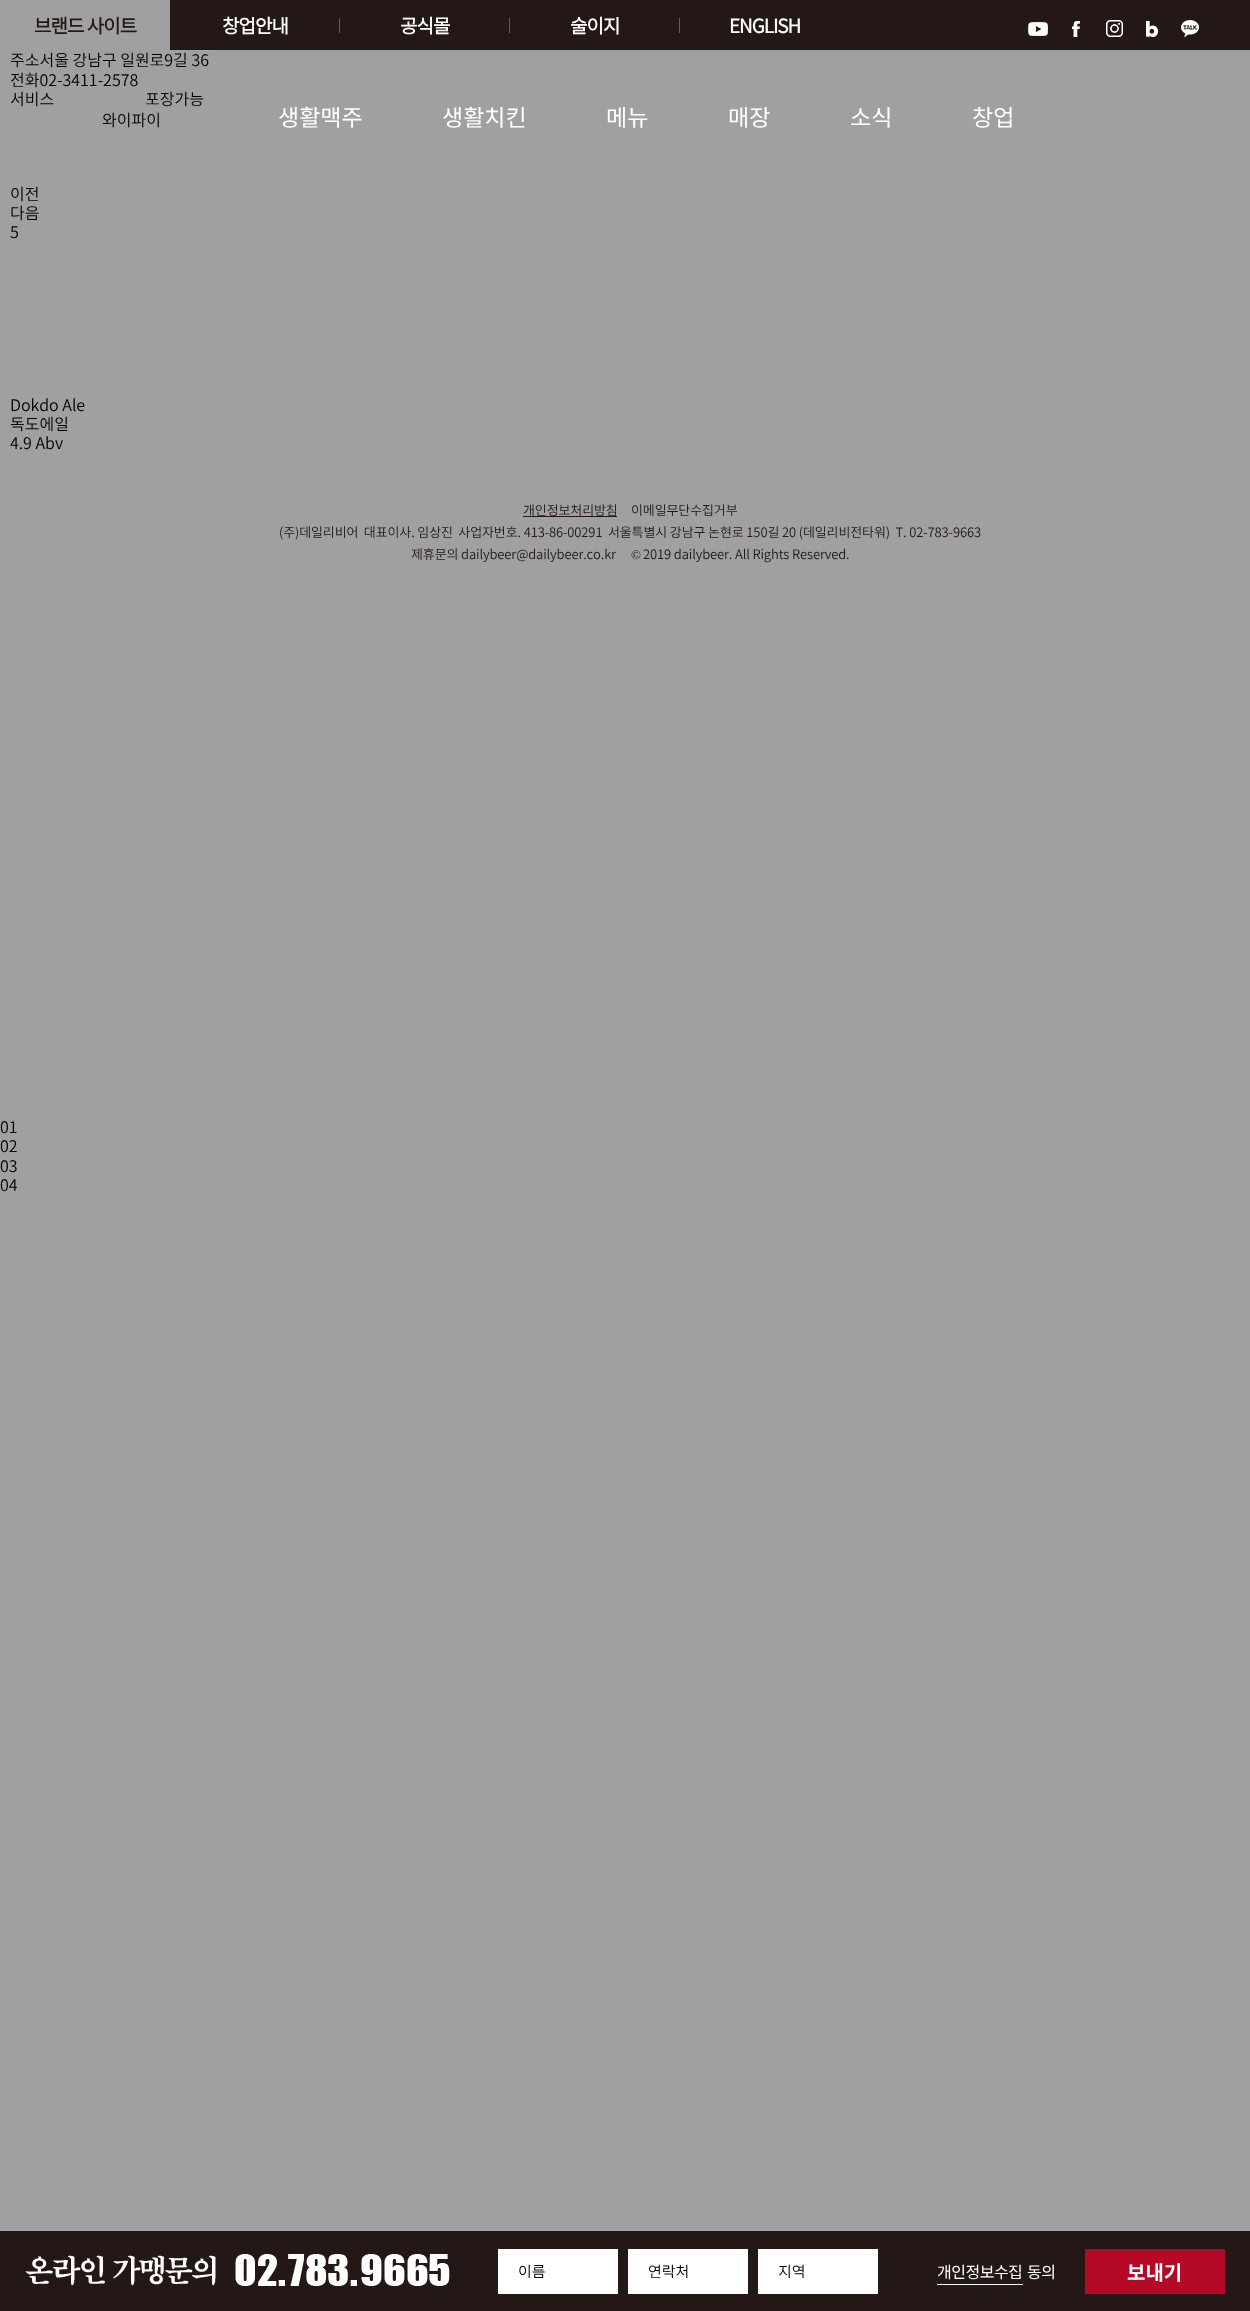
<?xml version="1.0" encoding="UTF-8"?>
<svg xmlns="http://www.w3.org/2000/svg" xmlns:xlink="http://www.w3.org/1999/xlink" width="1250" height="2311">
  <rect width="100%" height="100%" fill="#a0a0a0" />
  <rect x="170" width="1080" height="50" fill="#231815" />
  <rect x="339" y="18" width="1" height="15" fill="#655d5b" />
  <rect x="509" y="18" width="1" height="15" fill="#655d5b" />
  <rect x="679" y="18" width="1" height="15" fill="#655d5b" />
  <image x="1028" y="22" width="20" height="14" xlink:href="image1.png" />
  <image x="1072" y="21" width="8" height="16" xlink:href="image2.png" />
  <image x="1106" y="20" width="17" height="17" xlink:href="image3.png" />
  <image x="1146" y="21" width="12" height="16" xlink:href="image4.png" />
  <image x="1181" y="20" width="18" height="17" xlink:href="image5.png" />
  <rect x="523" y="516" width="94" height="1" fill="#231816" />
  <rect y="2231" width="1250" height="80" fill="#231816" />
  <image x="25" y="2254" width="425" height="32" xlink:href="image6.png" />
  <rect x="498" y="2249" width="120" height="45" fill="#ffffff" />
  <rect x="628" y="2249" width="120" height="45" fill="#ffffff" />
  <rect x="758" y="2249" width="120" height="45" fill="#ffffff" />
  <rect x="937" y="2284" width="86" height="1" fill="#ffffff" />
  <rect x="1085" y="2249" width="140" height="45" fill="#b60928" />
  <text x="34" y="33" style="font-family: Noto Sans KR; font-size: 19px; font-weight: bold; letter-spacing: -1px; fill: #231816">브랜드 사이트</text>
  <text x="222" y="33" style="font-family: Noto Sans KR; font-size: 19px; font-weight: bold; letter-spacing: -1px; fill: #ffffff">창업안내</text>
  <text x="400" y="33" style="font-family: Noto Sans KR; font-size: 19px; font-weight: bold; letter-spacing: -1px; fill: #ffffff">공식몰</text>
  <text x="570" y="33" style="font-family: Noto Sans KR; font-size: 19px; font-weight: bold; letter-spacing: -1px; fill: #ffffff">술이지</text>
  <text x="729" y="33" style="font-family: Noto Sans KR; font-size: 19px; font-weight: bold; letter-spacing: -1px; fill: #ffffff">ENGLISH</text>
  <text x="10" y="66" style="font-family: Noto Sans KR; font-size: 16px; font-weight: 300; fill: #000000">주소서울 강남구 일원로9길 36</text>
  <text x="10" y="86" style="font-family: Noto Sans KR; font-size: 16px; font-weight: 300; fill: #000000">전화02-3411-2578</text>
  <text x="10" y="105" style="font-family: Noto Sans KR; font-size: 16px; font-weight: 300; fill: #000000">서비스</text>
  <text x="145" y="105" style="font-family: Noto Sans KR; font-size: 16px; font-weight: 300; fill: #000000">포장가능</text>
  <text x="102" y="126" style="font-family: Noto Sans KR; font-size: 16px; font-weight: 300; fill: #000000">와이파이</text>
  <text x="10" y="200" style="font-family: Noto Sans KR; font-size: 16px; font-weight: 300; fill: #000000">이전</text>
  <text x="10" y="219" style="font-family: Noto Sans KR; font-size: 16px; font-weight: 300; fill: #000000">다음</text>
  <text x="10" y="238" style="font-family: Noto Sans KR; font-size: 16px; font-weight: 300; fill: #000000">5</text>
  <text x="10" y="411" style="font-family: Noto Sans KR; font-size: 16px; font-weight: 300; fill: #000000">Dokdo Ale</text>
  <text x="10" y="430" style="font-family: Noto Sans KR; font-size: 16px; font-weight: 300; fill: #000000">독도에일</text>
  <text x="10" y="449" style="font-family: Noto Sans KR; font-size: 16px; font-weight: 300; fill: #000000">4.9 Abv</text>
  <text x="523" y="515" style="font-family: Noto Sans KR; font-size: 13px; font-weight: 300; letter-spacing: -0.13px; fill: #231816">개인정보처리방침</text>
  <text x="631" y="515" style="font-family: Noto Sans KR; font-size: 13px; font-weight: 300; letter-spacing: -0.13px; fill: #231816">이메일무단수집거부</text>
  <text x="279" y="537" style="font-family: Noto Sans KR; font-size: 13px; font-weight: 300; letter-spacing: -0.13px; fill: #231816" xml:space="preserve">(주)데일리비어  대표이사. 임상진  사업자번호. 413-86-00291  서울특별시 강남구 논현로 150길 20 (데일리비전타워)  T. 02-783-9663</text>
  <text x="411" y="559" style="font-family: Noto Sans KR; font-size: 13px; font-weight: 300; letter-spacing: -0.13px; fill: #231816">제휴문의 dailybeer@dailybeer.co.kr</text>
  <text x="631" y="559" style="font-family: Liberation Serif; font-size: 13px; letter-spacing: -0.13px; fill: #231816">©</text>
  <text x="643" y="559" style="font-family: Noto Sans KR; font-size: 13px; font-weight: 300; letter-spacing: -0.13px; fill: #231816">2019 dailybeer. All Rights Reserved.</text>
  <text x="0" y="1133" style="font-family: Noto Sans KR; font-size: 16px; font-weight: 300; fill: #000000">01</text>
  <text x="0" y="1152" style="font-family: Noto Sans KR; font-size: 16px; font-weight: 300; fill: #000000">02</text>
  <text x="0" y="1172" style="font-family: Noto Sans KR; font-size: 16px; font-weight: 300; fill: #000000">03</text>
  <text x="0" y="1191" style="font-family: Noto Sans KR; font-size: 16px; font-weight: 300; fill: #000000">04</text>
  <text x="278" y="126" style="font-family: Noto Sans KR; font-size: 23px; fill: #ffffff">생활맥주</text>
  <text x="442" y="126" style="font-family: Noto Sans KR; font-size: 23px; fill: #ffffff">생활치킨</text>
  <text x="606" y="126" style="font-family: Noto Sans KR; font-size: 23px; fill: #ffffff">메뉴</text>
  <text x="728" y="126" style="font-family: Noto Sans KR; font-size: 23px; fill: #ffffff">매장</text>
  <text x="850" y="126" style="font-family: Noto Sans KR; font-size: 23px; fill: #ffffff">소식</text>
  <text x="972" y="126" style="font-family: Noto Sans KR; font-size: 23px; fill: #ffffff">창업</text>
  <text x="518" y="2277" style="font-family: Noto Sans KR; font-size: 15px; font-weight: 300; fill: #000000">이름</text>
  <text x="648" y="2277" style="font-family: Noto Sans KR; font-size: 15px; font-weight: 300; fill: #000000">연락처</text>
  <text x="778" y="2277" style="font-family: Noto Sans KR; font-size: 15px; font-weight: 300; fill: #000000">지역</text>
  <text x="937" y="2278" style="font-family: Noto Sans KR; font-size: 16px; letter-spacing: -0.5px; fill: #ffffff">개인정보수집</text>
  <text x="1027" y="2278" style="font-family: Noto Sans KR; font-size: 16px; letter-spacing: -0.5px; fill: #ffffff">동의</text>
  <text x="1127" y="2280" style="font-family: 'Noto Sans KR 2'; font-size: 20px; font-weight: bold; fill: #ffffff">보내기</text>
</svg>
